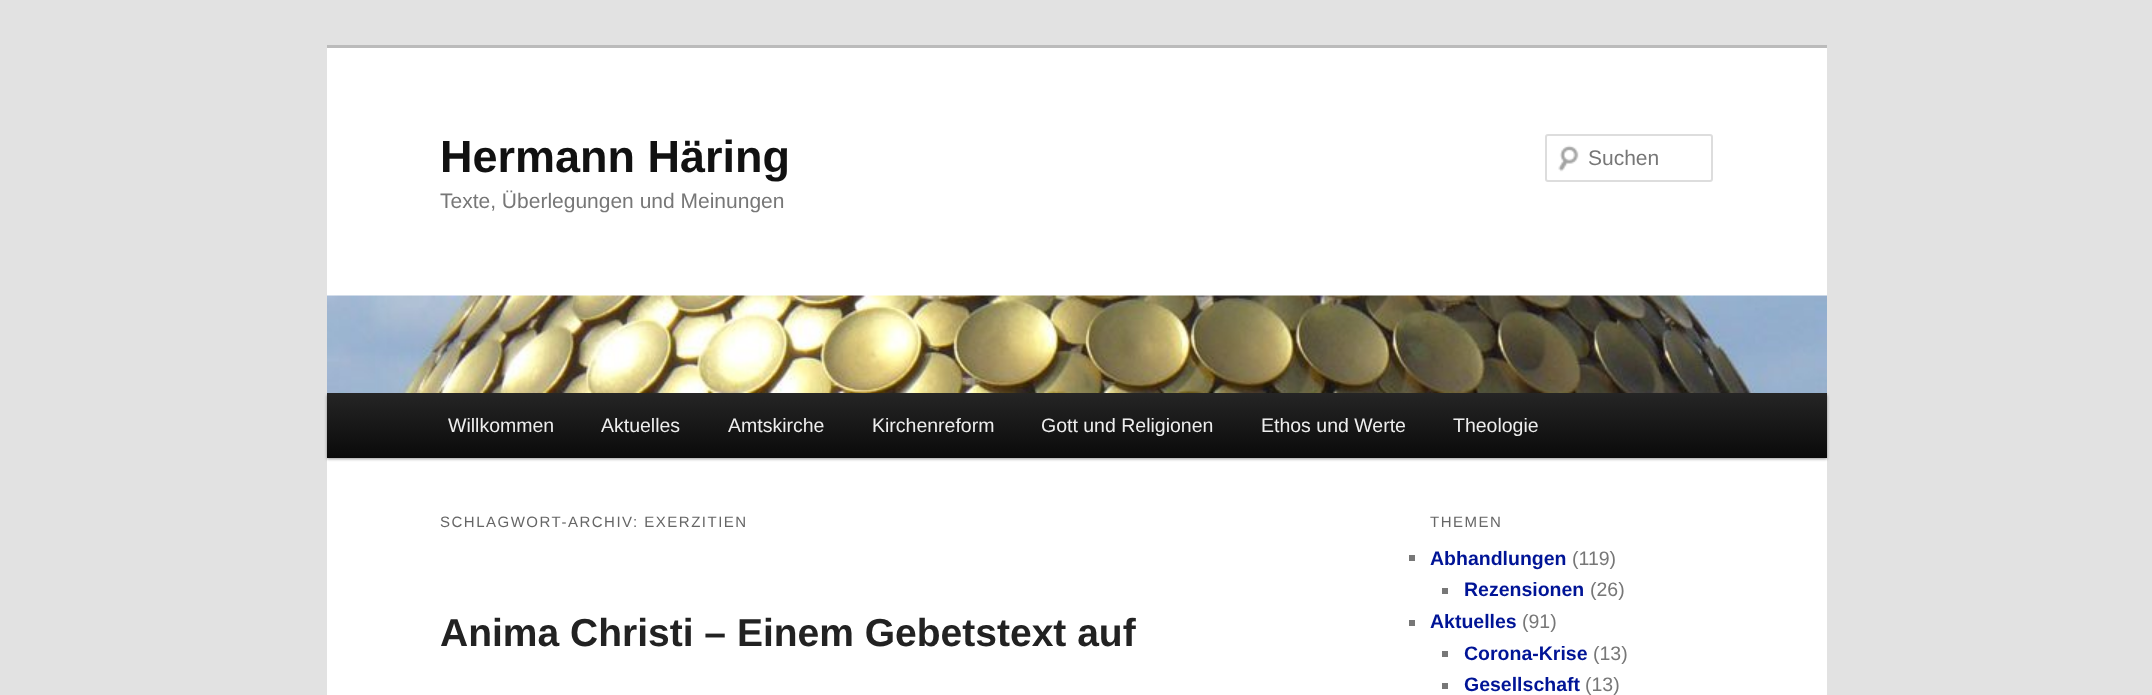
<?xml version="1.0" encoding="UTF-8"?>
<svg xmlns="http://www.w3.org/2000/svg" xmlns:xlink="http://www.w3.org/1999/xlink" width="2152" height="695">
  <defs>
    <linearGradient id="g1" gradientUnits="userSpaceOnUse" x1="1077" y1="393" x2="1077" y2="458"><stop offset="0" stop-color="#252525" /><stop offset="1" stop-color="#0a0a0a" /></linearGradient>
  </defs>
  <rect width="100%" height="100%" fill="#e2e2e2" />
  <rect x="327" y="48" width="1500" height="647" fill="#ffffff" />
  <rect x="327" y="45" width="1500" height="3" fill="#bbbbbb" />
  <image x="1558" y="145" width="21" height="27" xlink:href="image1.png" />
  <rect x="1546" y="135" width="166" height="46" rx="2" fill="none" stroke="#dddddd" stroke-width="2" />
  <rect x="327" y="395" width="1500" height="64" fill="#000000" fill-opacity="0.4" filter="blur(1.5px)" />
  <image x="327" y="295" width="1500" height="98" xlink:href="image2.png" />
  <rect x="327" y="393" width="1500" height="65" fill="url(#g1)" />
  <rect x="1409" y="555" width="6" height="6" fill="#777777" />
  <rect x="1442" y="588" width="6" height="6" fill="#777777" />
  <rect x="1409" y="620" width="6" height="6" fill="#777777" />
  <rect x="1442" y="651" width="6" height="6" fill="#777777" />
  <rect x="1442" y="683" width="6" height="6" fill="#777777" />
  <text x="440" y="172" style="font-family: Liberation Sans; font-size: 45px; font-weight: bold; fill: #111111">Hermann Häring</text>
  <text x="440" y="208" style="font-family: Liberation Sans; font-size: 21px; fill: #777777">Texte, Überlegungen und Meinungen</text>
  <text x="1588" y="165" style="font-family: Liberation Sans; font-size: 21px; fill: #777777">Suchen</text>
  <text x="448" y="432" style="font-family: Liberation Sans; font-size: 19.5px; fill: #eeeeee">Willkommen</text>
  <text x="601" y="432" style="font-family: Liberation Sans; font-size: 19.5px; fill: #eeeeee">Aktuelles</text>
  <text x="728" y="432" style="font-family: Liberation Sans; font-size: 19.5px; fill: #eeeeee">Amtskirche</text>
  <text x="872" y="432" style="font-family: Liberation Sans; font-size: 19.5px; fill: #eeeeee">Kirchenreform</text>
  <text x="1041" y="432" style="font-family: Liberation Sans; font-size: 19.5px; fill: #eeeeee">Gott und Religionen</text>
  <text x="1261" y="432" style="font-family: Liberation Sans; font-size: 19.5px; fill: #eeeeee">Ethos und Werte</text>
  <text x="1453" y="432" style="font-family: Liberation Sans; font-size: 19.5px; fill: #eeeeee">Theologie</text>
  <text x="440" y="527" style="font-family: Liberation Sans; font-size: 15px; letter-spacing: 1.5px; fill: #666666">SCHLAGWORT-ARCHIV: EXERZITIEN</text>
  <text x="440" y="646" style="font-family: Liberation Sans; font-size: 39px; font-weight: bold; fill: #222222">Anima Christi – Einem Gebetstext auf</text>
  <text x="1430" y="527" style="font-family: Liberation Sans; font-size: 15px; letter-spacing: 1.5px; fill: #666666">THEMEN</text>
  <text x="1430" y="565" style="font-family: Liberation Sans; font-size: 19.5px; font-weight: bold; fill: #001496">Abhandlungen</text>
  <text x="1572" y="565" style="font-family: Liberation Sans; font-size: 19.5px; fill: #777777">(119)</text>
  <text x="1464" y="596" style="font-family: Liberation Sans; font-size: 19.5px; font-weight: bold; fill: #001496">Rezensionen</text>
  <text x="1590" y="596" style="font-family: Liberation Sans; font-size: 19.5px; fill: #777777">(26)</text>
  <text x="1430" y="628" style="font-family: Liberation Sans; font-size: 19.5px; font-weight: bold; fill: #001496">Aktuelles</text>
  <text x="1522" y="628" style="font-family: Liberation Sans; font-size: 19.5px; fill: #777777">(91)</text>
  <text x="1464" y="660" style="font-family: Liberation Sans; font-size: 19.5px; font-weight: bold; fill: #001496">Corona-Krise</text>
  <text x="1593" y="660" style="font-family: Liberation Sans; font-size: 19.5px; fill: #777777">(13)</text>
  <text x="1464" y="691" style="font-family: Liberation Sans; font-size: 19.5px; font-weight: bold; fill: #001496">Gesellschaft</text>
  <text x="1585" y="691" style="font-family: Liberation Sans; font-size: 19.5px; fill: #777777">(13)</text>
</svg>
